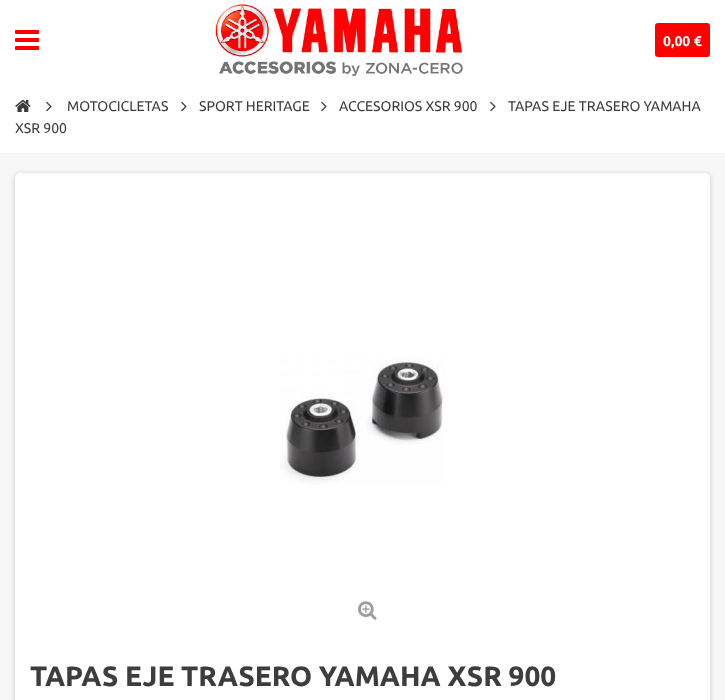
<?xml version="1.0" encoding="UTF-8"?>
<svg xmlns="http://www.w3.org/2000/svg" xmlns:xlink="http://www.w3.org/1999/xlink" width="725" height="700">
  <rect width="100%" height="100%" fill="#ffffff" />
  <image x="15" y="30" width="24" height="20" xlink:href="image1.png" />
  <image x="215" y="4" width="248" height="72" xlink:href="image2.png" />
  <rect x="655" y="23" width="55" height="34" rx="3" fill="#ff0000" />
  <image x="15" y="99" width="16" height="13" xlink:href="image3.png" />
  <image x="181" y="101" width="6" height="11" xlink:href="image4.png" />
  <image x="321" y="101" width="6" height="11" xlink:href="image4.png" />
  <image x="490" y="101" width="6" height="11" xlink:href="image4.png" />
  <image x="46" y="101" width="6" height="11" xlink:href="image4.png" />
  <rect y="153" width="725" height="547" fill="#f7f7f7" />
  <rect x="15" y="174" width="695" height="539" rx="5" fill="#c7c7c7" filter="blur(2.5px)" />
  <rect x="15" y="173" width="695" height="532" rx="5" fill="#ffffff" />
  <image x="280" y="357" width="166" height="128" xlink:href="image5.png" />
  <image x="358" y="601" width="19" height="19" xlink:href="image6.png" />
  <text x="663" y="46" style="font-family: Ubuntu; font-size: 14px; font-weight: bold; fill: #ffffff">0,00 €</text>
  <text x="67" y="111" style="font-family: Ubuntu; font-size: 14px; fill: #3d3d3d">MOTOCICLETAS</text>
  <text x="199" y="111" style="font-family: Ubuntu; font-size: 14px; fill: #3d3d3d">SPORT HERITAGE</text>
  <text x="339" y="111" style="font-family: Ubuntu; font-size: 14px; fill: #3d3d3d">ACCESORIOS XSR 900</text>
  <text x="508" y="111" style="font-family: Ubuntu; font-size: 14px; fill: #3d3d3d">TAPAS EJE TRASERO YAMAHA</text>
  <text x="15" y="133" style="font-family: Ubuntu; font-size: 14px; fill: #3d3d3d">XSR 900</text>
  <text x="30" y="686" style="font-family: Ubuntu; font-size: 28px; font-weight: bold; fill: #3d3d3d">TAPAS EJE TRASERO YAMAHA XSR 900</text>
</svg>
